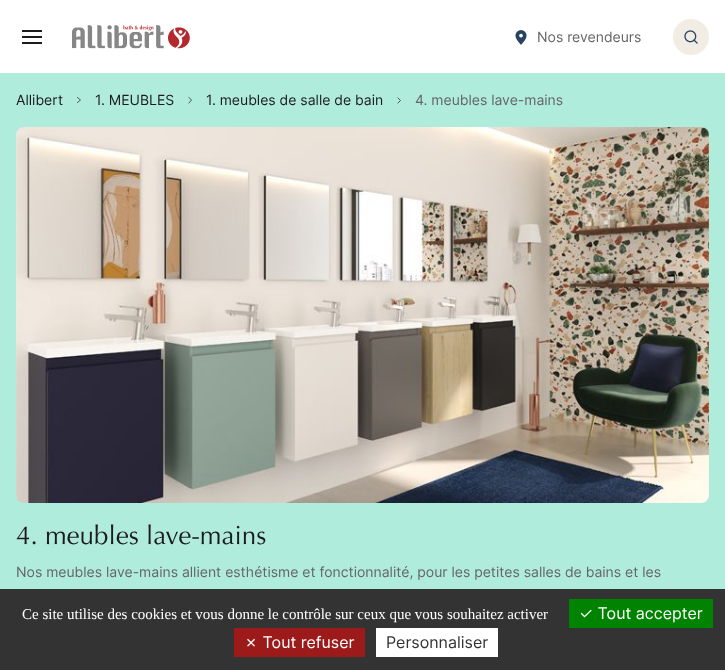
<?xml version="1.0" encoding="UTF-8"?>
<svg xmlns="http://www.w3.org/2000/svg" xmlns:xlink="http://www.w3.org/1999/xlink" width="725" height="670">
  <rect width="100%" height="100%" fill="#ffffff" />
  <rect x="22" y="36" width="20" height="2" fill="#1c1c1c" />
  <rect x="22" y="30" width="20" height="2" fill="#1c1c1c" />
  <rect x="22" y="42" width="20" height="2" fill="#1c1c1c" />
  <image x="72" y="25" width="118" height="24" xlink:href="image1.png" />
  <image x="515" y="30" width="12" height="15" xlink:href="image2.png" />
  <circle cx="691" cy="37" r="18" fill="#f2ede4" />
  <image x="684" y="30" width="14" height="14" xlink:href="image3.png" />
  <rect y="73" width="725" height="516" fill="#b0ecdb" />
  <path d="M 77.5 97.5 l 3 2.5 l -3 2.5" fill="none" stroke="#1c1c1c" stroke-width="0.7" stroke-linecap="square" />
  <path d="M 189 97.5 l 2.5 2.5 l -2.5 3" fill="none" stroke="#1c1c1c" stroke-width="0.7" stroke-linecap="square" />
  <path d="M 398 98 l 2.5 2.5 l -2.5 2.5" fill="none" stroke="#1c1c1c" stroke-width="0.7" stroke-linecap="square" />
  <image x="16" y="127" width="693" height="376" xlink:href="image4.png" />
  <rect y="589" width="725" height="81" fill="#333333" />
  <rect x="569" y="599" width="144" height="29" fill="#008300" />
  <rect x="234" y="628" width="131" height="29" fill="#9c1a1a" />
  <rect x="376" y="628" width="122" height="29" fill="#ffffff" />
  <text x="537" y="42" style="font-family: Inter; font-size: 14px; fill: #666666">Nos revendeurs</text>
  <text x="16" y="105" style="font-family: Inter; font-size: 14px; fill: #1c1c1c">Allibert</text>
  <text x="95" y="105" style="font-family: Inter; font-size: 14px; fill: #1c1c1c">1. MEUBLES</text>
  <text x="206" y="105" style="font-family: Inter; font-size: 14px; fill: #1c1c1c">1. meubles de salle de bain</text>
  <text x="415" y="105" style="font-family: Inter; font-size: 14px; fill: #666666">4. meubles lave-mains</text>
  <text x="16" y="544" style="font-family: Optima; font-size: 26px; fill: #1c1c1c">4. meubles lave-mains</text>
  <text x="16" y="577" style="font-family: Inter; font-size: 14px; fill: #666666">Nos meubles lave-mains allient esthétisme et fonctionnalité, pour les petites salles de bains et les</text>
  <text x="22" y="619" style="font-family: Liberation Serif; font-size: 15px; fill: #ffffff">Ce site utilise des cookies et vous donne le contrôle sur ceux que vous souhaitez activer</text>
  <text x="579" y="619" style="font-family: Inter; font-size: 16px; fill: #ffffff">✓ Tout accepter</text>
  <text x="244" y="648" style="font-family: Inter; font-size: 16px; fill: #ffffff">✗ Tout refuser</text>
  <text x="386" y="648" style="font-family: Inter; font-size: 16px; fill: #333333">Personnaliser</text>
</svg>
